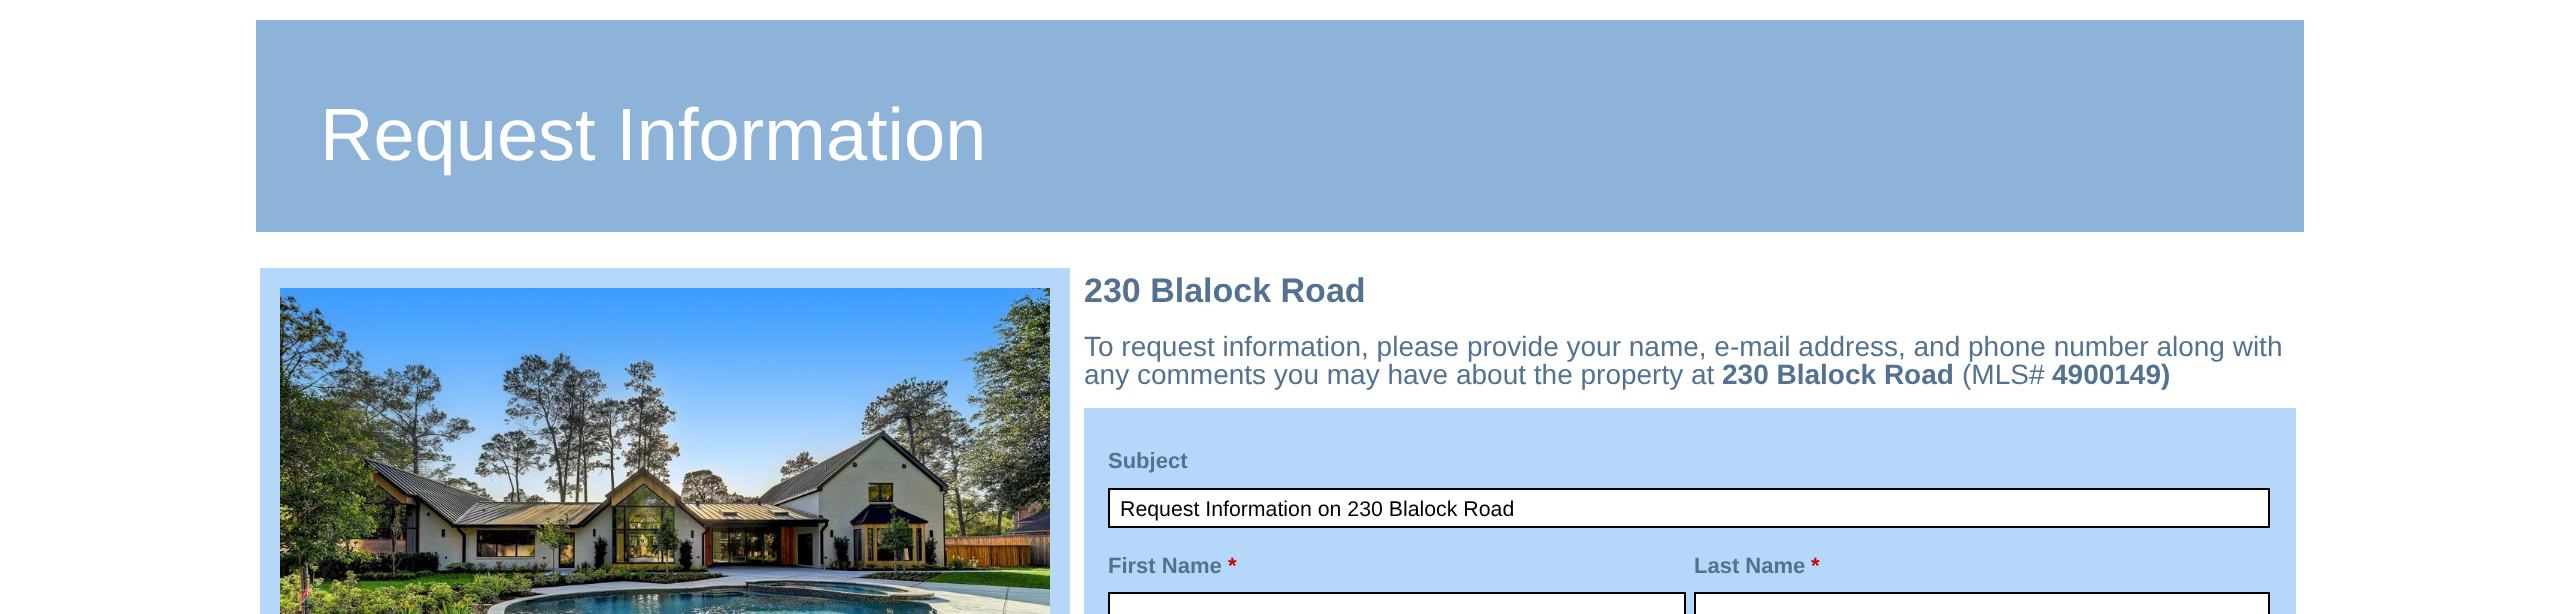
<?xml version="1.0" encoding="UTF-8"?>
<svg xmlns="http://www.w3.org/2000/svg" xmlns:xlink="http://www.w3.org/1999/xlink" width="2560" height="614">
  <rect width="100%" height="100%" fill="#ffffff" />
  <rect x="256" y="20" width="2048" height="212" fill="#8db3d8" />
  <rect x="260" y="268" width="810" height="346" fill="#b5d7f9" />
  <image x="280" y="288" width="770" height="326" xlink:href="image1.png" />
  <rect x="1084" y="408" width="1212" height="206" fill="#b5d7f9" />
  <rect x="1109" y="489" width="1160" height="38" fill="#ffffff" stroke="#000000" stroke-width="2" />
  <rect x="1109" y="593" width="576" height="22" fill="#ffffff" stroke="#000000" stroke-width="2" />
  <rect x="1695" y="593" width="574" height="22" fill="#ffffff" stroke="#000000" stroke-width="2" />
  <text x="320" y="160" style="font-family: Liberation Sans; font-size: 74px; fill: #ffffff">Request Information</text>
  <text x="1084" y="302" style="font-family: Liberation Sans; font-size: 34px; font-weight: bold; fill: #537291">230 Blalock Road</text>
  <text x="1084" y="356" style="font-family: Liberation Sans; font-size: 28px; fill: #537291">To request information, please provide your name, e-mail address, and phone number along with</text>
  <text x="1084" y="384" style="font-family: Liberation Sans; font-size: 28px; fill: #537291">any comments you may have about the property at</text>
  <text x="1722" y="384" style="font-family: Liberation Sans; font-size: 28px; font-weight: bold; fill: #537291">230 Blalock Road</text>
  <text x="1962" y="384" style="font-family: Liberation Sans; font-size: 28px; fill: #537291">(MLS#</text>
  <text x="2052" y="384" style="font-family: Liberation Sans; font-size: 28px; font-weight: bold; fill: #537291">4900149)</text>
  <text x="1108" y="468" style="font-family: Liberation Sans; font-size: 22px; font-weight: bold; fill: #537291">Subject</text>
  <text x="1120" y="516" style="font-family: Liberation Sans; font-size: 21.3px; fill: #000000">Request Information on 230 Blalock Road</text>
  <text x="1108" y="573" style="font-family: Liberation Sans; font-size: 22px; font-weight: bold; fill: #537291">First Name</text>
  <text x="1228" y="573" style="font-family: Liberation Sans; font-size: 22px; font-weight: bold; fill: #cc0000">*</text>
  <text x="1694" y="573" style="font-family: Liberation Sans; font-size: 22px; font-weight: bold; fill: #537291">Last Name</text>
  <text x="1811" y="573" style="font-family: Liberation Sans; font-size: 22px; font-weight: bold; fill: #cc0000">*</text>
</svg>
